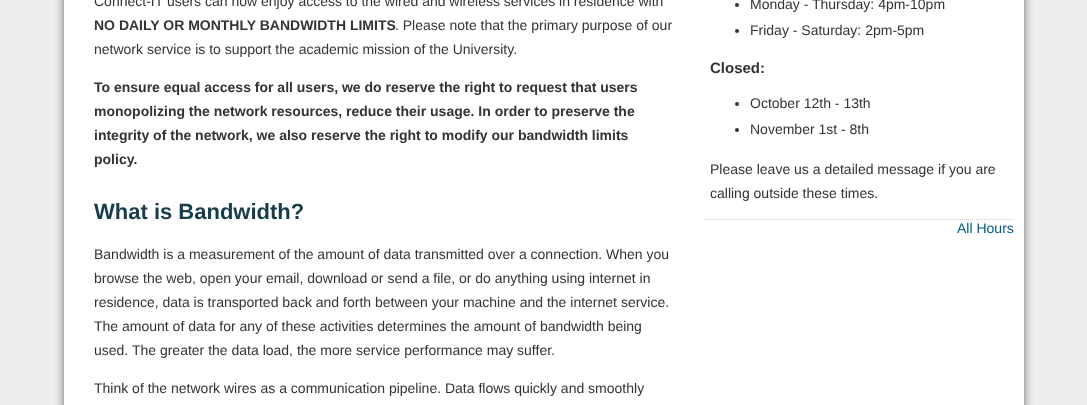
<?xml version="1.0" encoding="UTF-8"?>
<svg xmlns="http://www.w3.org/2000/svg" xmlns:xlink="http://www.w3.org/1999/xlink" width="1087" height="405">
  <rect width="100%" height="100%" fill="#eeeeee" />
  <rect x="64" y="-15" width="960" height="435" fill="#666666" filter="blur(5px)" />
  <rect x="64" width="960" height="405" fill="#ffffff" />
  <path d="M 704 219.5 h 310" fill="none" stroke="#cccccc" stroke-dasharray="1 1" />
  <circle cx="737" cy="5" r="2" fill="#333333" />
  <circle cx="737" cy="31" r="2" fill="#333333" />
  <circle cx="737" cy="104" r="2" fill="#333333" />
  <circle cx="737" cy="130" r="2" fill="#333333" />
  <text x="94" y="6" style="font-family: Liberation Sans; font-size: 14px; fill: #333333">Connect-IT users can now enjoy access to the wired and wireless services in residence with</text>
  <text x="94" y="30" style="font-family: Liberation Sans; font-size: 14px; font-weight: bold; fill: #333333">NO DAILY OR MONTHLY BANDWIDTH LIMITS</text>
  <text x="395" y="30" style="font-family: Liberation Sans; font-size: 14px; fill: #333333">. Please note that the primary purpose of our</text>
  <text x="94" y="54" style="font-family: Liberation Sans; font-size: 14px; fill: #333333">network service is to support the academic mission of the University.</text>
  <text x="94" y="92" style="font-family: Liberation Sans; font-size: 14px; font-weight: bold; fill: #333333">To ensure equal access for all users, we do reserve the right to request that users</text>
  <text x="94" y="116" style="font-family: Liberation Sans; font-size: 14px; font-weight: bold; fill: #333333">monopolizing the network resources, reduce their usage. In order to preserve the</text>
  <text x="94" y="140" style="font-family: Liberation Sans; font-size: 14px; font-weight: bold; fill: #333333">integrity of the network, we also reserve the right to modify our bandwidth limits</text>
  <text x="94" y="164" style="font-family: Liberation Sans; font-size: 14px; font-weight: bold; fill: #333333">policy.</text>
  <text x="94" y="219" style="font-family: Liberation Sans; font-size: 22px; font-weight: bold; fill: #173d4d">What is Bandwidth?</text>
  <text x="94" y="259" style="font-family: Liberation Sans; font-size: 14px; fill: #333333">Bandwidth is a measurement of the amount of data transmitted over a connection. When you</text>
  <text x="94" y="283" style="font-family: Liberation Sans; font-size: 14px; fill: #333333">browse the web, open your email, download or send a file, or do anything using internet in</text>
  <text x="94" y="307" style="font-family: Liberation Sans; font-size: 14px; fill: #333333">residence, data is transported back and forth between your machine and the internet service.</text>
  <text x="94" y="331" style="font-family: Liberation Sans; font-size: 14px; fill: #333333">The amount of data for any of these activities determines the amount of bandwidth being</text>
  <text x="94" y="355" style="font-family: Liberation Sans; font-size: 14px; fill: #333333">used. The greater the data load, the more service performance may suffer.</text>
  <text x="94" y="393" style="font-family: Liberation Sans; font-size: 14px; fill: #333333">Think of the network wires as a communication pipeline. Data flows quickly and smoothly</text>
  <text x="750" y="9" style="font-family: Liberation Sans; font-size: 14px; fill: #333333">Monday - Thursday: 4pm-10pm</text>
  <text x="750" y="35" style="font-family: Liberation Sans; font-size: 14px; fill: #333333">Friday - Saturday: 2pm-5pm</text>
  <text x="710" y="73" style="font-family: Liberation Sans; font-size: 15px; font-weight: bold; fill: #333333">Closed:</text>
  <text x="750" y="108" style="font-family: Liberation Sans; font-size: 14px; fill: #333333">October 12th - 13th</text>
  <text x="750" y="134" style="font-family: Liberation Sans; font-size: 14px; fill: #333333">November 1st - 8th</text>
  <text x="710" y="174" style="font-family: Liberation Sans; font-size: 14px; fill: #333333">Please leave us a detailed message if you are</text>
  <text x="710" y="198" style="font-family: Liberation Sans; font-size: 14px; fill: #333333">calling outside these times.</text>
  <text x="957" y="233" style="font-family: Liberation Sans; font-size: 14px; fill: #015b86">All Hours</text>
</svg>
